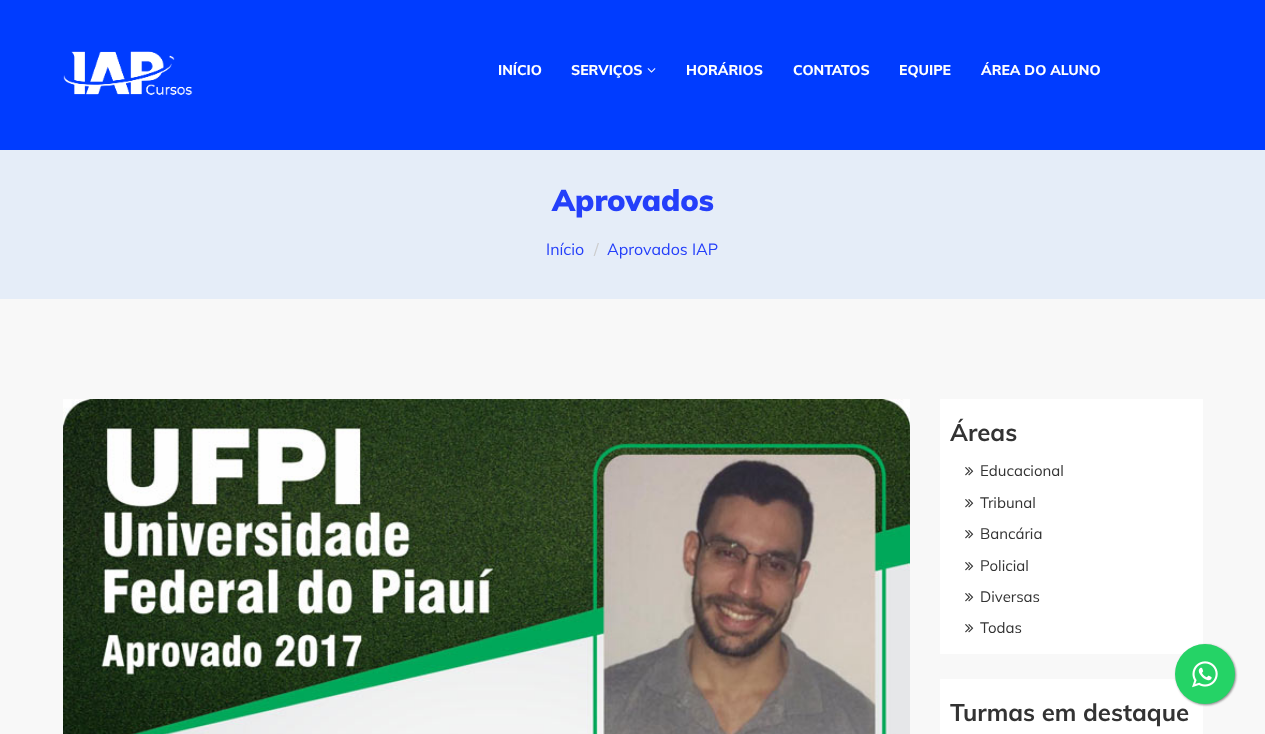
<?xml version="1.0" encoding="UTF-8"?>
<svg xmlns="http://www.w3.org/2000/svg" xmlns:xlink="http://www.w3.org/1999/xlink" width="1265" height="734">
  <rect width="100%" height="100%" fill="#003cff" />
  <image x="63" y="51" width="130" height="44" xlink:href="image1.png" />
  <image x="647" y="68" width="9" height="5" xlink:href="image2.png" />
  <rect y="150" width="1265" height="149" fill="#e5edf8" />
  <rect y="299" width="1265" height="435" fill="#f8f8f8" />
  <image x="63" y="399" width="847" height="335" xlink:href="image3.png" />
  <rect x="940" y="399" width="263" height="255" fill="#ffffff" />
  <image x="965" y="467" width="9" height="9" xlink:href="image4.png" />
  <image x="965" y="499" width="9" height="9" xlink:href="image4.png" />
  <image x="965" y="530" width="9" height="9" xlink:href="image4.png" />
  <image x="965" y="562" width="9" height="9" xlink:href="image4.png" />
  <image x="965" y="593" width="9" height="9" xlink:href="image4.png" />
  <image x="965" y="624" width="9" height="9" xlink:href="image4.png" />
  <rect x="940" y="679" width="263" height="55" fill="#ffffff" />
  <rect x="1176" y="645" width="60" height="60" rx="30" fill="#888888" filter="blur(1px)" />
  <text x="498" y="75" style="font-family: Muli; font-size: 14px; font-weight: 800; fill: #ffffff">INÍCIO</text>
  <text x="571" y="75" style="font-family: Muli; font-size: 14px; font-weight: 800; fill: #ffffff">SERVIÇOS</text>
  <text x="686" y="75" style="font-family: Muli; font-size: 14px; font-weight: 800; fill: #ffffff">HORÁRIOS</text>
  <text x="793" y="75" style="font-family: Muli; font-size: 14px; font-weight: 800; fill: #ffffff">CONTATOS</text>
  <text x="899" y="75" style="font-family: Muli; font-size: 14px; font-weight: 800; fill: #ffffff">EQUIPE</text>
  <text x="981" y="75" style="font-family: Muli; font-size: 14px; font-weight: 800; fill: #ffffff">ÁREA DO ALUNO</text>
  <text x="552" y="211" style="font-family: Muli; font-size: 30px; font-weight: 900; fill: #243ffa">Aprovados</text>
  <text x="546" y="255" style="font-family: Muli; font-size: 16px; fill: #243ffa">Início</text>
  <text x="594" y="255" style="font-family: Muli; font-size: 16px; fill: #cccccc">/</text>
  <text x="607" y="255" style="font-family: Muli; font-size: 16px; fill: #243ffa">Aprovados IAP</text>
  <text x="950" y="441" style="font-family: Muli; font-size: 24px; font-weight: bold; fill: #333333">Áreas</text>
  <text x="980" y="476" style="font-family: Muli; font-size: 15px; fill: #333333">Educacional</text>
  <text x="980" y="508" style="font-family: Muli; font-size: 15px; fill: #333333">Tribunal</text>
  <text x="980" y="539" style="font-family: Muli; font-size: 15px; fill: #333333">Bancária</text>
  <text x="980" y="571" style="font-family: Muli; font-size: 15px; fill: #333333">Policial</text>
  <text x="980" y="602" style="font-family: Muli; font-size: 15px; fill: #333333">Diversas</text>
  <text x="980" y="633" style="font-family: Muli; font-size: 15px; fill: #333333">Todas</text>
  <text x="950" y="721" style="font-family: Muli; font-size: 24px; font-weight: bold; fill: #333333">Turmas em destaque</text>
  <circle cx="1205" cy="674" r="30" fill="#25d366" />
  <image x="1192" y="661" width="26" height="27" xlink:href="image5.png" />
</svg>
